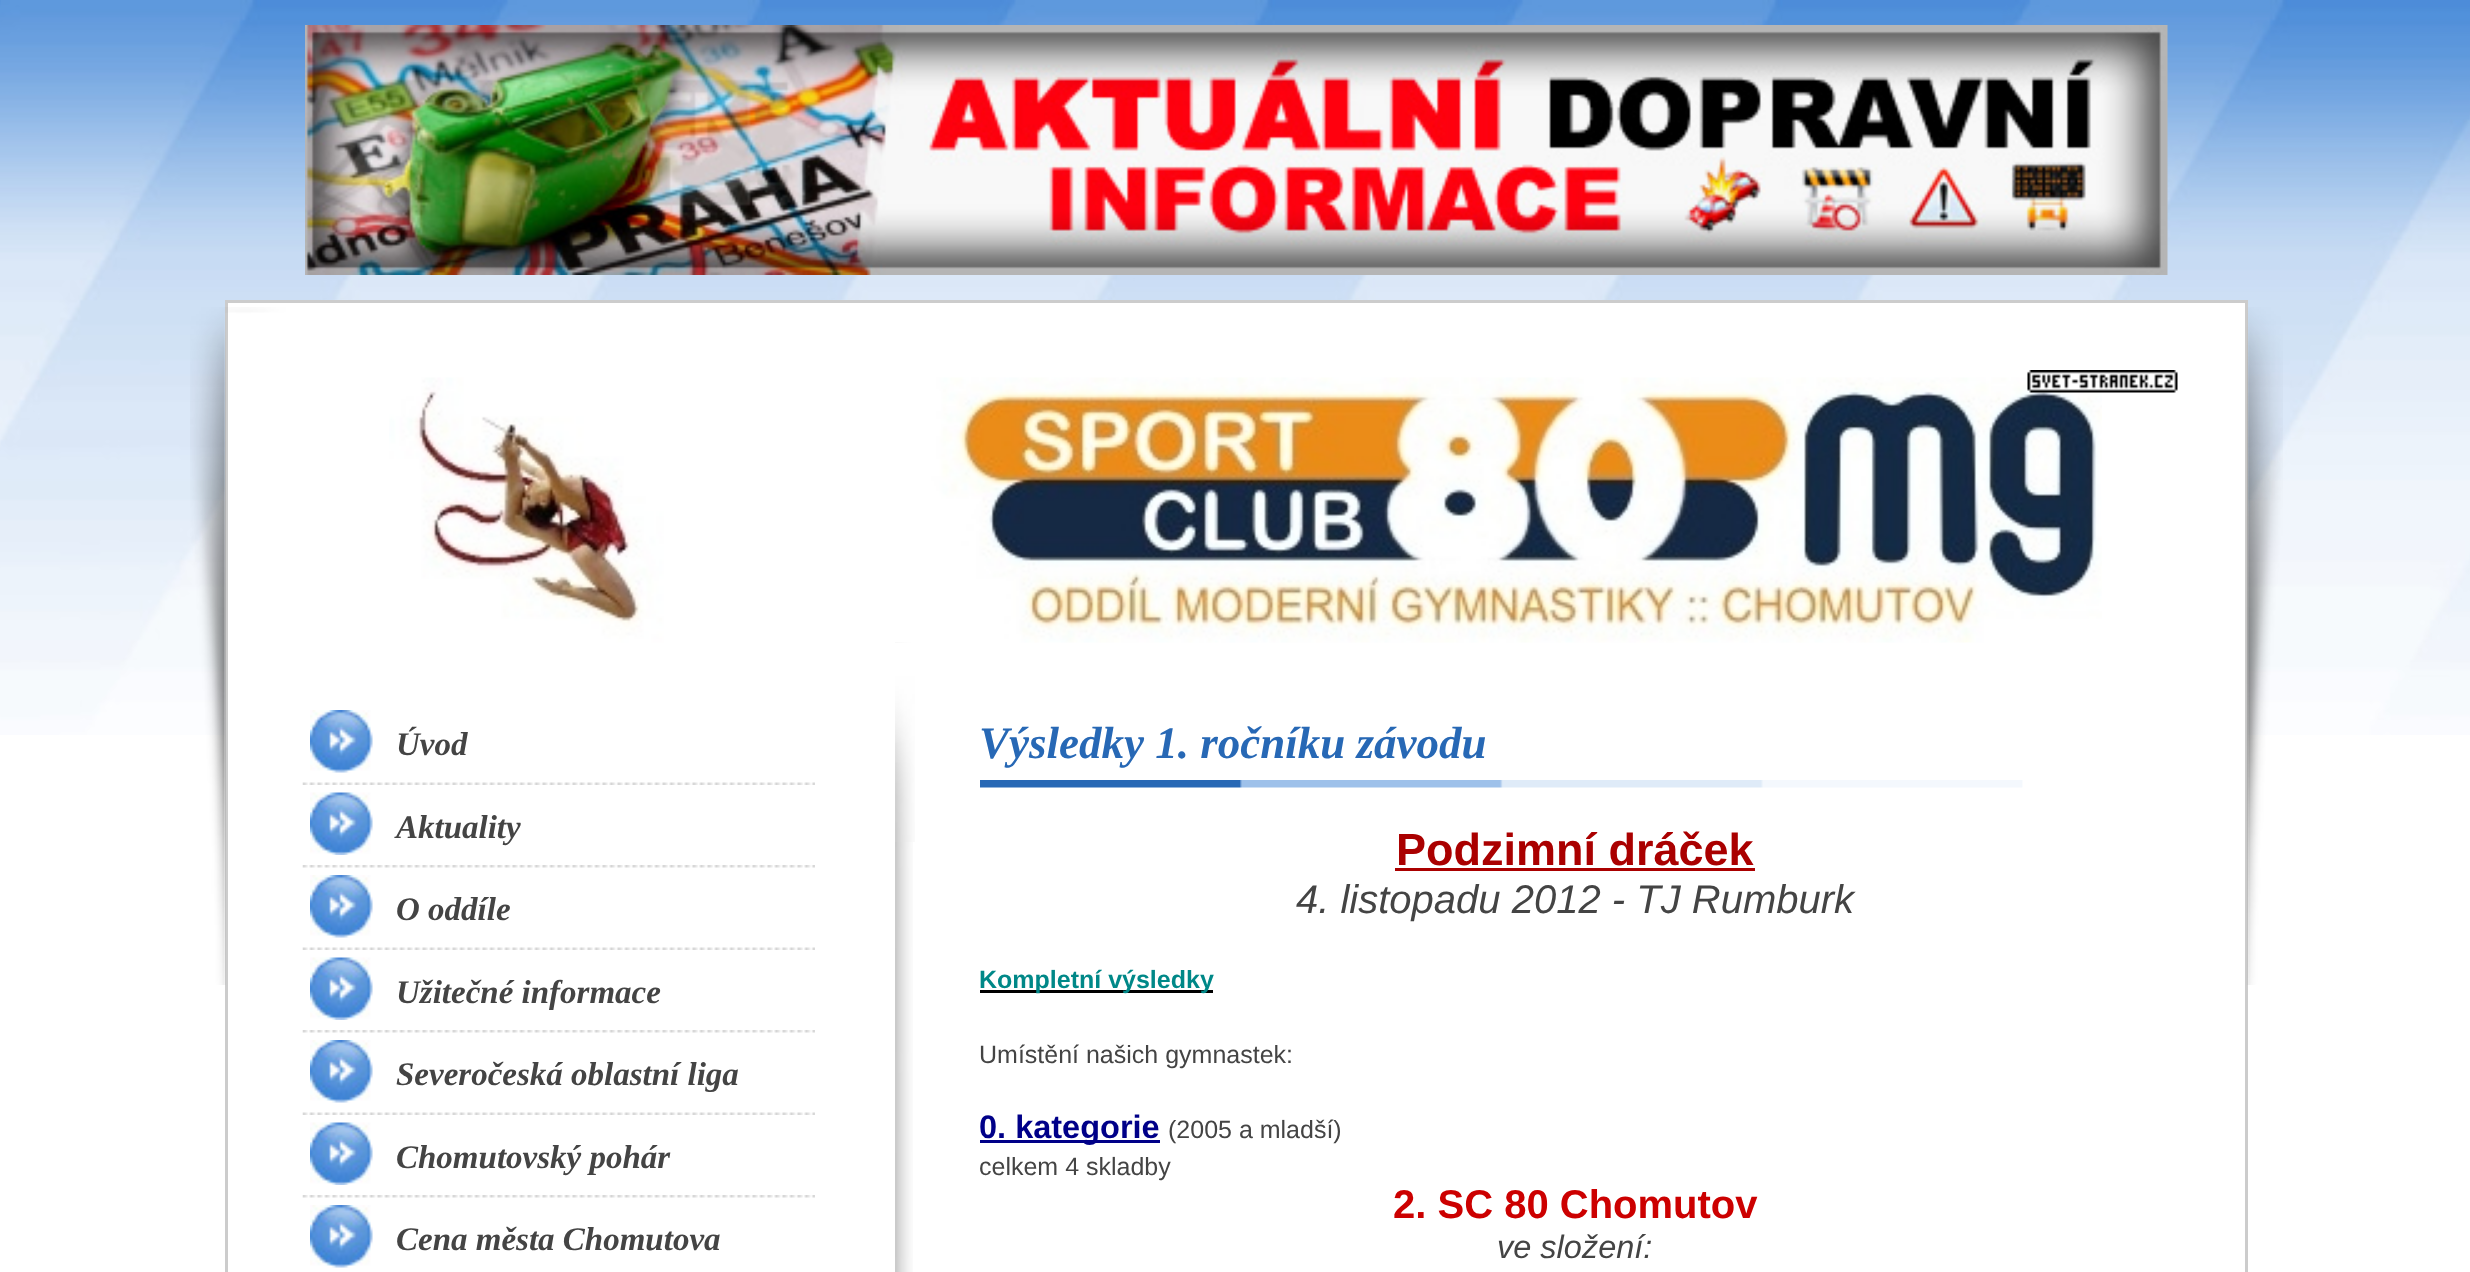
<?xml version="1.0" encoding="UTF-8"?>
<svg xmlns="http://www.w3.org/2000/svg" xmlns:xlink="http://www.w3.org/1999/xlink" width="2470" height="1272">
  <rect width="100%" height="100%" fill="#ffffff" />
  <image x="0" y="0" width="2470" height="735" xlink:href="image1.png" />
  <image x="305" y="25" width="1863" height="250" xlink:href="image2.png" />
  <rect x="228" y="303" width="2017" height="432" fill="#ffffff" />
  <rect x="226.5" y="301.5" width="2020" height="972" fill="none" stroke="#cccccc" stroke-width="3" />
  <image x="895" y="642" width="18" height="630" xlink:href="image6.png" />
  <image x="190" y="307" width="2093" height="678" xlink:href="image3.png" />
  <image x="389" y="377" width="1713" height="266" xlink:href="image4.png" />
  <image x="2027" y="370" width="151" height="23" xlink:href="image5.png" />
  <image x="302" y="782" width="513" height="3" xlink:href="image7.png" />
  <image x="310" y="710" width="63" height="63" xlink:href="image8.png" />
  <image x="302" y="865" width="513" height="3" xlink:href="image9.png" />
  <image x="310" y="792" width="63" height="63" xlink:href="image10.png" />
  <image x="302" y="947" width="513" height="3" xlink:href="image7.png" />
  <image x="310" y="875" width="63" height="63" xlink:href="image8.png" />
  <image x="302" y="1030" width="513" height="3" xlink:href="image9.png" />
  <image x="310" y="957" width="63" height="63" xlink:href="image10.png" />
  <image x="302" y="1112" width="513" height="3" xlink:href="image7.png" />
  <image x="310" y="1040" width="63" height="63" xlink:href="image8.png" />
  <image x="302" y="1195" width="513" height="3" xlink:href="image9.png" />
  <image x="310" y="1122" width="63" height="63" xlink:href="image11.png" />
  <image x="310" y="1205" width="63" height="63" xlink:href="image8.png" />
  <image x="895" y="642" width="20" height="200" xlink:href="image12.png" />
  <image x="980" y="780" width="1043" height="8" xlink:href="image13.png" />
  <rect x="1395" y="868" width="360" height="3" fill="#aa0000" />
  <rect x="980" y="990" width="233" height="3" fill="#000000" />
  <rect x="980" y="1140" width="180" height="3" fill="#000088" />
  <text x="396" y="755" style="font-family: Liberation Serif; font-size: 33px; font-weight: bold; font-style: italic; fill: #444444">Úvod</text>
  <text x="396" y="838" style="font-family: Liberation Serif; font-size: 33px; font-weight: bold; font-style: italic; fill: #444444">Aktuality</text>
  <text x="396" y="920" style="font-family: Liberation Serif; font-size: 33px; font-weight: bold; font-style: italic; fill: #444444">O oddíle</text>
  <text x="396" y="1003" style="font-family: Liberation Serif; font-size: 33px; font-weight: bold; font-style: italic; fill: #444444">Užitečné informace</text>
  <text x="396" y="1085" style="font-family: Liberation Serif; font-size: 33px; font-weight: bold; font-style: italic; fill: #444444">Severočeská oblastní liga</text>
  <text x="396" y="1168" style="font-family: Liberation Serif; font-size: 33px; font-weight: bold; font-style: italic; fill: #444444">Chomutovský pohár</text>
  <text x="396" y="1250" style="font-family: Liberation Serif; font-size: 33px; font-weight: bold; font-style: italic; fill: #444444">Cena města Chomutova</text>
  <text x="979" y="758" style="font-family: Liberation Serif; font-size: 45px; font-weight: bold; font-style: italic; fill: #2768b5">Výsledky 1. ročníku závodu</text>
  <text x="1396" y="865" style="font-family: Liberation Sans; font-size: 45px; font-weight: bold; fill: #aa0000">Podzimní dráček</text>
  <text x="1296" y="913" style="font-family: Liberation Sans; font-size: 40px; font-style: italic; fill: #444444">4. listopadu 2012 - TJ Rumburk</text>
  <text x="979" y="988" style="font-family: Liberation Sans; font-size: 25px; font-weight: bold; fill: #008888">Kompletní výsledky</text>
  <text x="979" y="1063" style="font-family: Liberation Sans; font-size: 25px; fill: #444444">Umístění našich gymnastek:</text>
  <text x="979" y="1138" style="font-family: Liberation Sans; font-size: 32.5px; font-weight: bold; fill: #000088">0. kategorie</text>
  <text x="1168" y="1138" style="font-family: Liberation Sans; font-size: 25px; fill: #444444">(2005 a mladší)</text>
  <text x="979" y="1175" style="font-family: Liberation Sans; font-size: 25px; fill: #444444">celkem 4 skladby</text>
  <text x="1393" y="1218" style="font-family: Liberation Sans; font-size: 40px; font-weight: bold; fill: #cc0000">2. SC 80 Chomutov</text>
  <text x="1497" y="1258" style="font-family: Liberation Sans; font-size: 32.5px; font-style: italic; fill: #444444">ve složení:</text>
</svg>
